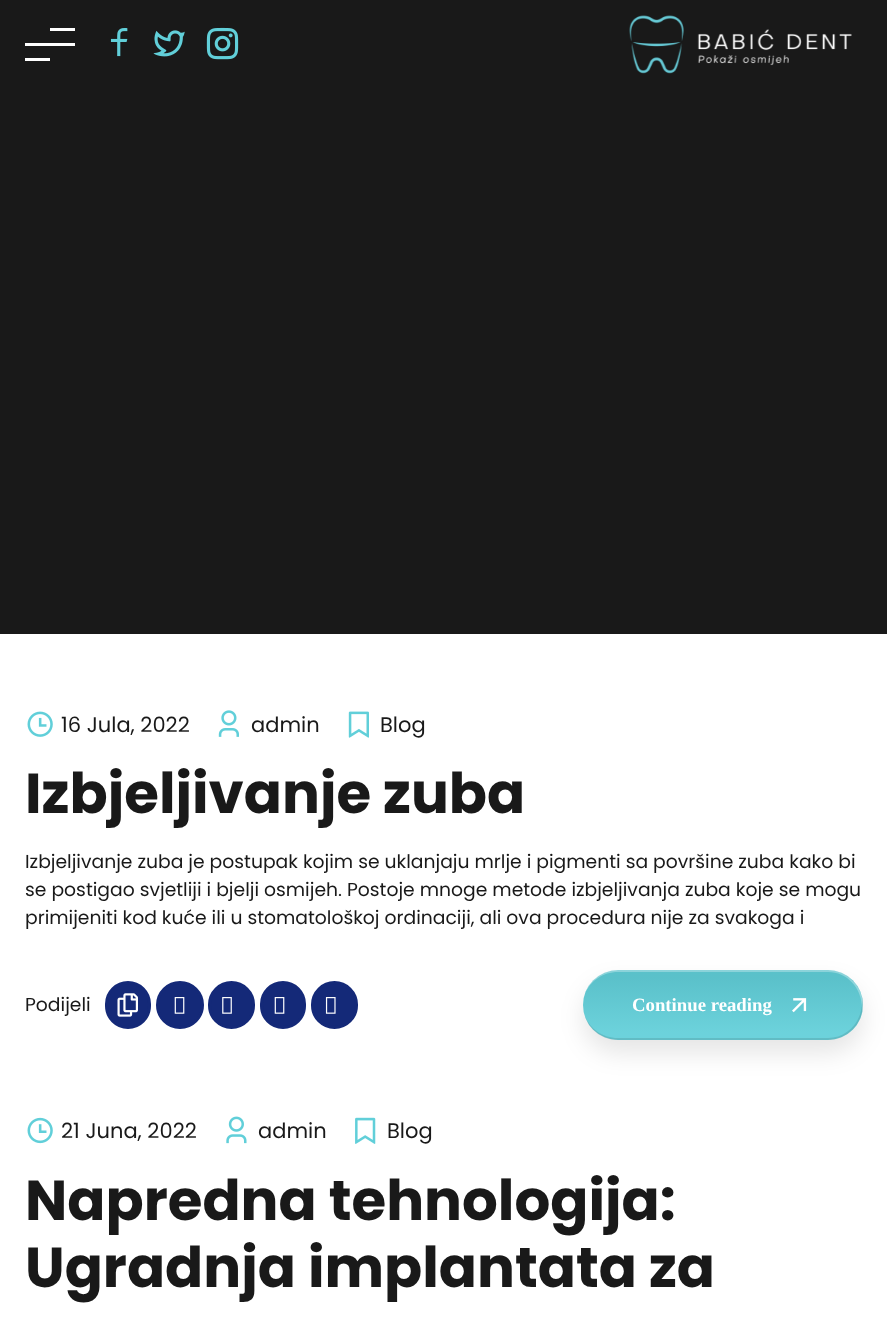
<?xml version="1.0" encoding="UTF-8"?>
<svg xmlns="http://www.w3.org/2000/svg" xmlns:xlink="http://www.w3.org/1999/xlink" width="887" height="1336">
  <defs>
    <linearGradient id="g1" gradientUnits="userSpaceOnUse" x1="723" y1="970" x2="723" y2="1040"><stop offset="0.1" stop-color="#000000" stop-opacity="0.07" /><stop offset="0.9" stop-color="#ffffff" stop-opacity="0.07" /></linearGradient>
  </defs>
  <rect width="100%" height="100%" fill="#ffffff" />
  <rect width="887" height="634" fill="#191919" />
  <rect x="50" y="28" width="25" height="3" fill="#ffffff" />
  <rect x="25" y="43" width="50" height="3" fill="#ffffff" />
  <rect x="25" y="58" width="25" height="3" fill="#ffffff" />
  <image x="110" y="28" width="18" height="29" xlink:href="image1.png" />
  <image x="153" y="30" width="32" height="27" xlink:href="image2.png" />
  <image x="206" y="27" width="33" height="33" xlink:href="image3.png" />
  <image x="629" y="15" width="223" height="59" xlink:href="image4.png" />
  <image x="27" y="711" width="26" height="26" xlink:href="image5.png" />
  <image x="218" y="710" width="21" height="27" xlink:href="image6.png" />
  <image x="348" y="711" width="21" height="27" xlink:href="image7.png" />
  <rect x="106.5" y="982.5" width="43" height="45" rx="21.5" fill="#142978" stroke="#142978" stroke-width="3" />
  <image x="117" y="993" width="21" height="24" xlink:href="image8.png" />
  <circle cx="180" cy="1005" r="22.5" fill="#142978" stroke="#142978" stroke-width="3" />
  <image x="174" y="997" width="11" height="17" xlink:href="image9.png" />
  <rect x="209.5" y="982.5" width="44" height="45" rx="22" fill="#142978" stroke="#142978" stroke-width="3" />
  <image x="222" y="997" width="10" height="17" xlink:href="image10.png" />
  <rect x="261.5" y="982.5" width="43" height="45" rx="21.5" fill="#142978" stroke="#142978" stroke-width="3" />
  <image x="274" y="997" width="11" height="17" xlink:href="image9.png" />
  <rect x="312.5" y="982.5" width="44" height="45" rx="22" fill="#142978" stroke="#142978" stroke-width="3" />
  <image x="325" y="997" width="11" height="17" xlink:href="image11.png" />
  <rect x="583" y="983" width="280" height="70" rx="35" fill="#000000" fill-opacity="0.1" filter="blur(12.5px)" />
  <rect x="583" y="970" width="280" height="70" rx="35" fill="#61cfd9" />
  <rect x="583" y="970" width="280" height="70" rx="35" fill="url(#g1)" />
  <path d="M 585 1016 c 4 14 17 24 33 24 h 210 c 19 0 35 -16 35 -35 c 0 -4 -1 -9 -2 -13 c 1 3 1 7 1 10 c 0 20 -15 36 -34 36 h -210 c -15 0 -28 -9 -33 -22 z" fill="#000000" fill-opacity="0.1" />
  <path d="M 618 972 h 210 c 19 0 34 16 34 36 c 0 3 0 7 -1 10 c 1 -4 2 -9 2 -13 c 0 -19 -16 -35 -35 -35 h -210 c -16 0 -29 10 -33 24 c 5 -13 18 -22 33 -22 z" fill="#ffffff" fill-opacity="0.3" />
  <image x="792" y="998" width="15" height="15" xlink:href="image12.png" />
  <image x="27" y="1117" width="26" height="27" xlink:href="image13.png" />
  <image x="226" y="1116" width="21" height="28" xlink:href="image14.png" />
  <image x="355" y="1117" width="21" height="27" xlink:href="image15.png" />
  <text x="61" y="732" style="font-family: Poppins; font-size: 21px; fill: #191919">16 Jula, 2022</text>
  <text x="251" y="732" style="font-family: Poppins; font-size: 21px; fill: #191919">admin</text>
  <text x="380" y="732" style="font-family: Poppins; font-size: 21px; fill: #191919">Blog</text>
  <text x="25" y="813" style="font-family: Poppins; font-size: 56.25px; font-weight: bold; fill: #191919">Izbjeljivanje zuba</text>
  <text x="25" y="868" style="font-family: Poppins; font-size: 18.75px; fill: #191919">Izbjeljivanje zuba je postupak kojim se uklanjaju mrlje i pigmenti sa površine zuba kako bi</text>
  <text x="25" y="896" style="font-family: Poppins; font-size: 18.75px; fill: #191919">se postigao svjetliji i bjelji osmijeh. Postoje mnoge metode izbjeljivanja zuba koje se mogu</text>
  <text x="25" y="924" style="font-family: Poppins; font-size: 18.75px; fill: #191919">primijeniti kod kuće ili u stomatološkoj ordinaciji, ali ova procedura nije za svakoga i</text>
  <text x="25" y="1011" style="font-family: Poppins; font-size: 18.75px; fill: #191919">Podijeli</text>
  <text x="632" y="1011" style="font-family: Liberation Serif; font-size: 18.75px; font-weight: bold; fill: #ffffff">Continue reading</text>
  <text x="61" y="1138" style="font-family: Poppins; font-size: 21px; fill: #191919">21 Juna, 2022</text>
  <text x="258" y="1138" style="font-family: Poppins; font-size: 21px; fill: #191919">admin</text>
  <text x="387" y="1138" style="font-family: Poppins; font-size: 21px; fill: #191919">Blog</text>
  <text x="25" y="1220" style="font-family: Poppins; font-size: 56.25px; font-weight: bold; fill: #191919">Napredna tehnologija:</text>
  <text x="25" y="1287" style="font-family: Poppins; font-size: 56.25px; font-weight: bold; fill: #191919">Ugradnja implantata za</text>
</svg>
